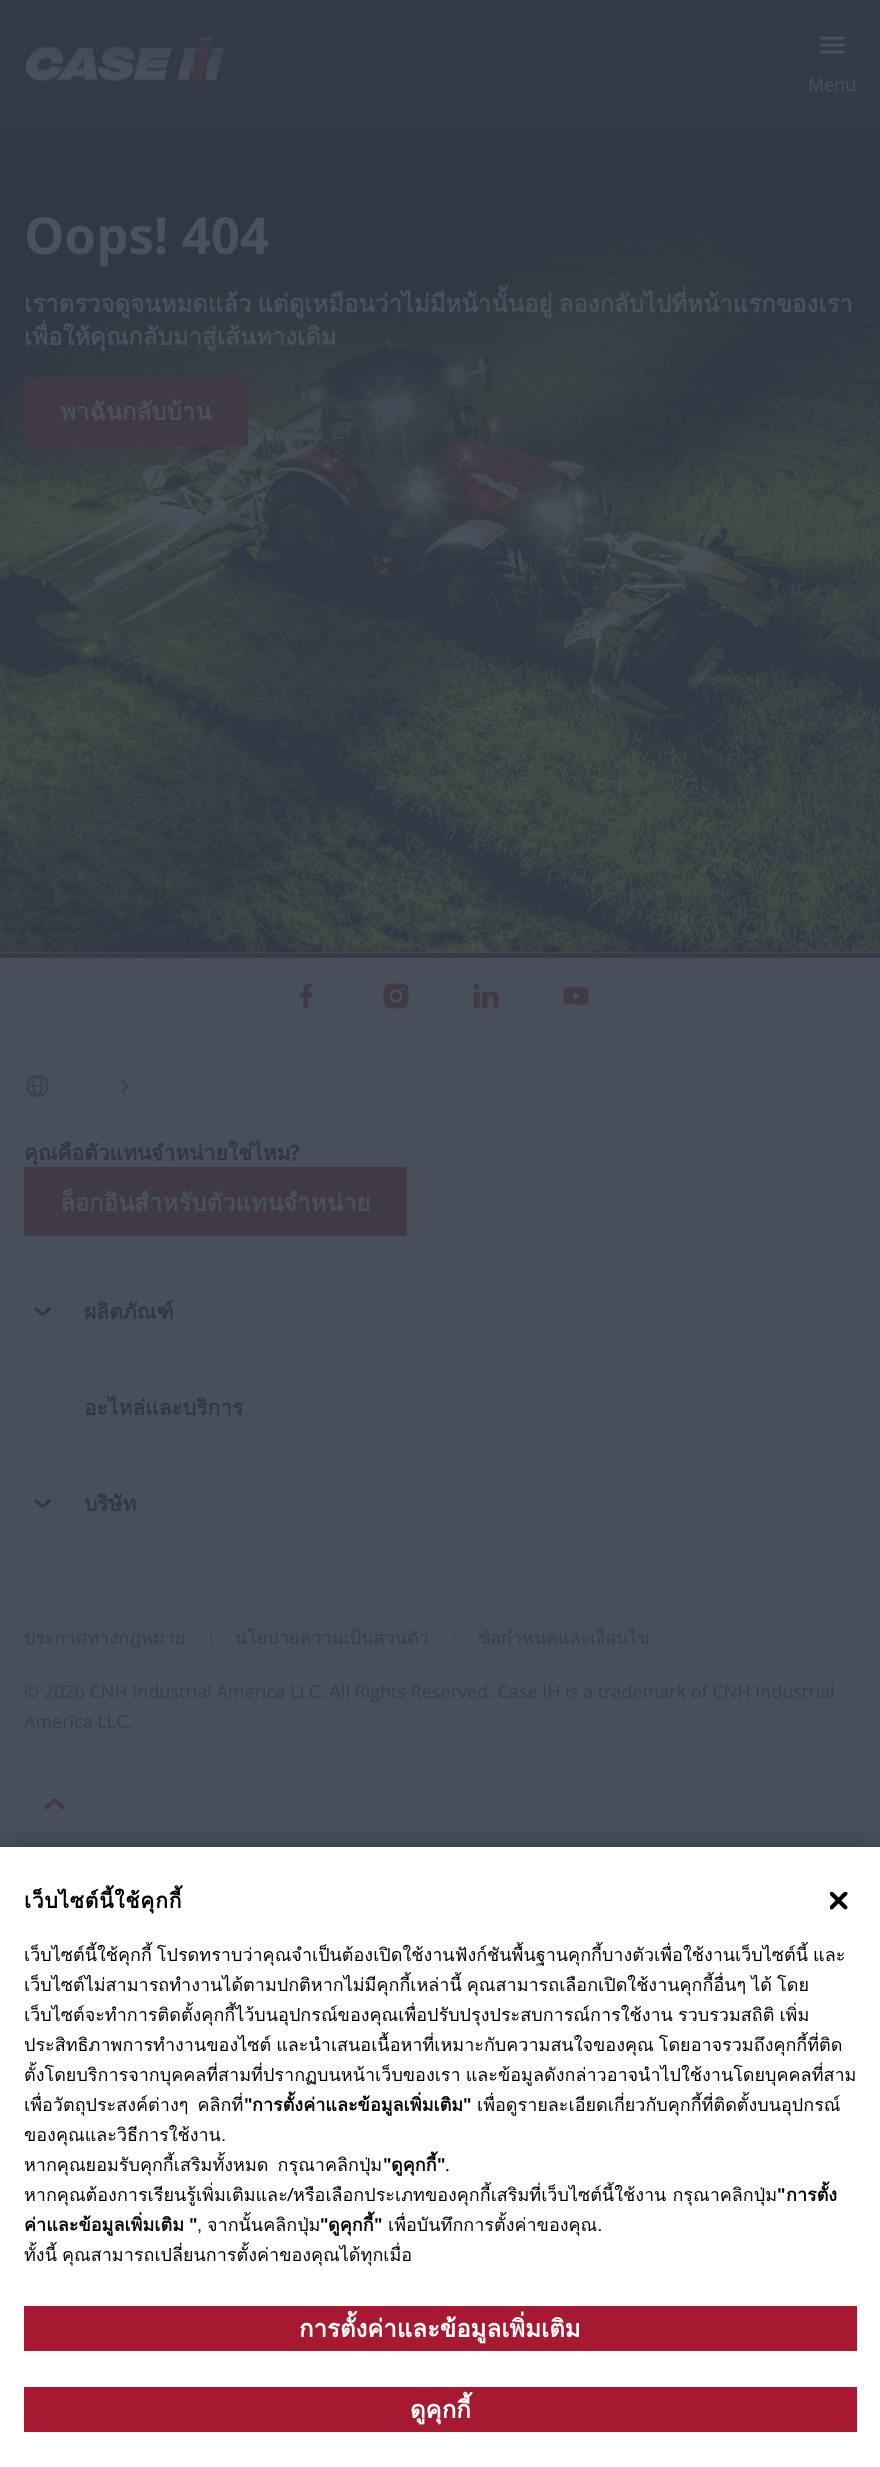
<?xml version="1.0" encoding="UTF-8"?>
<svg xmlns="http://www.w3.org/2000/svg" xmlns:xlink="http://www.w3.org/1999/xlink" width="880" height="2467">
  <rect width="100%" height="100%" fill="#474f5a" />
  <rect width="880" height="128" fill="#323b46" />
  <image x="24" y="36" width="203" height="47" xlink:href="image1.png" />
  <image x="819" y="36" width="27" height="18" xlink:href="image2.png" />
  <image x="0" y="128" width="880" height="825" xlink:href="image3.png" />
  <rect x="24" y="377" width="224" height="69" fill="#403a47" />
  <rect y="953" width="880" height="5" fill="#3d3845" />
  <image x="299" y="983" width="14" height="26" xlink:href="image4.png" />
  <image x="383" y="983" width="26" height="26" xlink:href="image5.png" />
  <image x="473" y="983" width="26" height="26" xlink:href="image6.png" />
  <image x="563" y="987" width="26" height="18" xlink:href="image7.png" />
  <image x="26" y="1074" width="23" height="24" xlink:href="image8.png" />
  <image x="121" y="1080" width="8" height="13" xlink:href="image9.png" />
  <rect x="24" y="1167" width="383" height="69" fill="#403a47" />
  <image x="34" y="1307" width="17" height="10" xlink:href="image10.png" />
  <image x="34" y="1499" width="17" height="10" xlink:href="image10.png" />
  <rect x="210" y="1631" width="2" height="15" fill="#404954" />
  <rect x="453" y="1631" width="2" height="15" fill="#404954" />
  <image x="44" y="1798" width="22" height="12" xlink:href="image11.png" />
  <rect y="1847" width="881" height="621" fill="#000000" fill-opacity="0.2" filter="blur(13.5px)" />
  <rect y="1847" width="880" height="620" fill="#ffffff" />
  <rect x="24" y="2306" width="833" height="45" fill="#a71930" />
  <rect x="24" y="2387" width="833" height="45" fill="#a71930" />
  <image x="830" y="1892" width="18" height="18" xlink:href="image12.png" />
  <text x="808" y="91" style="font-family: Open Sans; font-size: 18px; fill: #48515c">Menu</text>
  <text x="24" y="254" style="font-family: Open Sans; font-size: 51px; font-weight: bold; fill: #48515c">Oops! 404</text>
  <text x="24" y="312" word-spacing="-2" style="font-family: Loma; font-size: 24px; font-weight: bold; fill: #48515c">เราตรวจดูจนหมดแล้ว แต่ดูเหมือนว่าไม่มีหน้านั้นอยู่ ลองกลับไปที่หน้าแรกของเรา</text>
  <text x="24" y="345" style="font-family: Loma; font-size: 24px; font-weight: bold; fill: #48515c">เพื่อให้คุณกลับมาสู่เส้นทางเดิม</text>
  <text x="60" y="420" style="font-family: Loma; font-size: 24px; font-weight: bold; fill: #48515c">พาฉันกลับบ้าน</text>
  <text x="24" y="1160" style="font-family: Loma; font-size: 21px; font-weight: bold; fill: #2f3843">คุณคือตัวแทนจำหน่ายใช่ไหม</text>
  <text x="290" y="1160" style="font-family: Open Sans; font-size: 21px; font-weight: bold; fill: #2f3843">?</text>
  <text x="60" y="1211" style="font-family: Loma; font-size: 24px; font-weight: bold; fill: #48515c">ล็อกอินสำหรับตัวแทนจำหน่าย</text>
  <text x="84" y="1319" style="font-family: Loma; font-size: 21px; font-weight: bold; fill: #2f3843">ผลิตภัณฑ์</text>
  <text x="84" y="1415" style="font-family: Loma; font-size: 21px; font-weight: bold; fill: #2f3843">อะไหล่และบริการ</text>
  <text x="84" y="1511" style="font-family: Loma; font-size: 21px; font-weight: bold; fill: #2f3843">บริษัท</text>
  <text x="24" y="1644" style="font-family: Loma; font-size: 18px; fill: #363f4a">ประกาศทางกฎหมาย</text>
  <text x="235" y="1644" style="font-family: Loma; font-size: 18px; fill: #363f4a">นโยบายความเป็นส่วนตัว</text>
  <text x="478" y="1644" style="font-family: Loma; font-size: 18px; fill: #363f4a">ข้อกำหนดและเงื่อนไข</text>
  <text x="24" y="1698" style="font-family: Open Sans; font-size: 18px; fill: #363f4a">© 2026 CNH Industrial America LLC. All Rights Reserved. Case IH is a trademark of CNH Industrial</text>
  <text x="24" y="1728" style="font-family: Open Sans; font-size: 18px; fill: #363f4a">America LLC.</text>
  <text x="24" y="1908" style="font-family: Loma; font-size: 21px; font-weight: bold; letter-spacing: 0.75px; fill: #000000">เว็บไซต์นี้ใช้คุกกี้</text>
  <text x="24" y="1961" word-spacing="-1" style="font-family: Loma; font-size: 18px; fill: #000000">เว็บไซต์นี้ใช้คุกกี้ โปรดทราบว่าคุณจำเป็นต้องเปิดใช้งานฟังก์ชันพื้นฐานคุกกี้บางตัวเพื่อใช้งานเว็บไซต์นี้ และ</text>
  <text x="24" y="1991" word-spacing="-1" style="font-family: Loma; font-size: 18px; fill: #000000">เว็บไซต์ไม่สามารถทำงานได้ตามปกติหากไม่มีคุกกี้เหล่านี้ คุณสามารถเลือกเปิดใช้งานคุกกี้อื่นๆ ได้ โดย</text>
  <text x="24" y="2021" word-spacing="-1" style="font-family: Loma; font-size: 18px; fill: #000000">เว็บไซต์จะทำการติดตั้งคุกกี้ไว้บนอุปกรณ์ของคุณเพื่อปรับปรุงประสบการณ์การใช้งาน รวบรวมสถิติ เพิ่ม</text>
  <text x="24" y="2051" word-spacing="-1" style="font-family: Loma; font-size: 18px; fill: #000000">ประสิทธิภาพการทำงานของไซต์ และนำเสนอเนื้อหาที่เหมาะกับความสนใจของคุณ โดยอาจรวมถึงคุกกี้ที่ติด</text>
  <text x="24" y="2081" word-spacing="-1" style="font-family: Loma; font-size: 18px; fill: #000000">ตั้งโดยบริการจากบุคคลที่สามที่ปรากฏบนหน้าเว็บของเรา และข้อมูลดังกล่าวอาจนำไปใช้งานโดยบุคคลที่สาม</text>
  <text x="24" y="2111" word-spacing="3" style="font-family: Loma; font-size: 18px; fill: #000000">เพื่อวัตถุประสงค์ต่างๆ คลิกที่</text>
  <text x="244" y="2111" style="font-family: Open Sans; font-size: 18px; font-weight: bold; fill: #000000">"</text>
  <text x="252" y="2111" style="font-family: Loma; font-size: 18px; font-weight: bold; fill: #000000">การตั้งค่าและข้อมูลเพิ่มเติม</text>
  <text x="463" y="2111" style="font-family: Open Sans; font-size: 18px; font-weight: bold; fill: #000000">"</text>
  <text x="477" y="2111" style="font-family: Loma; font-size: 18px; fill: #000000">เพื่อดูรายละเอียดเกี่ยวกับคุกกี้ที่ติดตั้งบนอุปกรณ์</text>
  <text x="24" y="2141" style="font-family: Loma; font-size: 18px; fill: #000000">ของคุณและวิธีการใช้งาน.</text>
  <text x="24" y="2171" word-spacing="3" style="font-family: Loma; font-size: 18px; fill: #000000">หากคุณยอมรับคุกกี้เสริมทั้งหมด กรุณาคลิกปุ่ม</text>
  <text x="383" y="2171" style="font-family: Open Sans; font-size: 18px; font-weight: bold; fill: #000000">"</text>
  <text x="391" y="2171" style="font-family: Loma; font-size: 18px; font-weight: bold; fill: #000000">ดูคุกกี้</text>
  <text x="437" y="2171" style="font-family: Open Sans; font-size: 18px; font-weight: bold; fill: #000000">"</text>
  <text x="445" y="2171" style="font-family: Open Sans; font-size: 18px; fill: #000000">.</text>
  <text x="24" y="2201" style="font-family: Loma; font-size: 18px; fill: #000000">หากคุณต้องการเรียนรู้เพิ่มเติมและ/หรือเลือกประเภทของคุกกี้เสริมที่เว็บไซต์นี้ใช้งาน กรุณาคลิกปุ่ม</text>
  <text x="777" y="2201" style="font-family: Open Sans; font-size: 18px; font-weight: bold; fill: #000000">"</text>
  <text x="786" y="2201" style="font-family: Loma; font-size: 18px; font-weight: bold; fill: #000000">การตั้ง</text>
  <text x="24" y="2231" style="font-family: Loma; font-size: 18px; font-weight: bold; fill: #000000">ค่าและข้อมูลเพิ่มเติม</text>
  <text x="189" y="2231" style="font-family: Open Sans; font-size: 18px; font-weight: bold; fill: #000000">"</text>
  <text x="207" y="2231" style="font-family: Loma; font-size: 18px; fill: #000000">จากนั้นคลิกปุ่ม</text>
  <text x="388" y="2231" style="font-family: Loma; font-size: 18px; fill: #000000">เพื่อบันทึกการตั้งค่าของคุณ.</text>
  <text x="320" y="2231" style="font-family: Open Sans; font-size: 18px; font-weight: bold; fill: #000000">"</text>
  <text x="328" y="2231" style="font-family: Loma; font-size: 18px; font-weight: bold; fill: #000000">ดูคุกกี้</text>
  <text x="374" y="2231" style="font-family: Open Sans; font-size: 18px; font-weight: bold; fill: #000000">"</text>
  <text x="197" y="2231" style="font-family: Loma; font-size: 18px; fill: #000000">,</text>
  <text x="24" y="2261" word-spacing="-1" style="font-family: Loma; font-size: 18px; fill: #000000">ทั้งนี้ คุณสามารถเปลี่ยนการตั้งค่าของคุณได้ทุกเมื่อ</text>
  <text x="299" y="2337" style="font-family: Loma; font-size: 24px; font-weight: bold; fill: #ffffff">การตั้งค่าและข้อมูลเพิ่มเติม</text>
  <text x="410" y="2418" style="font-family: Loma; font-size: 24px; font-weight: bold; fill: #ffffff">ดูคุกกี้</text>
</svg>
